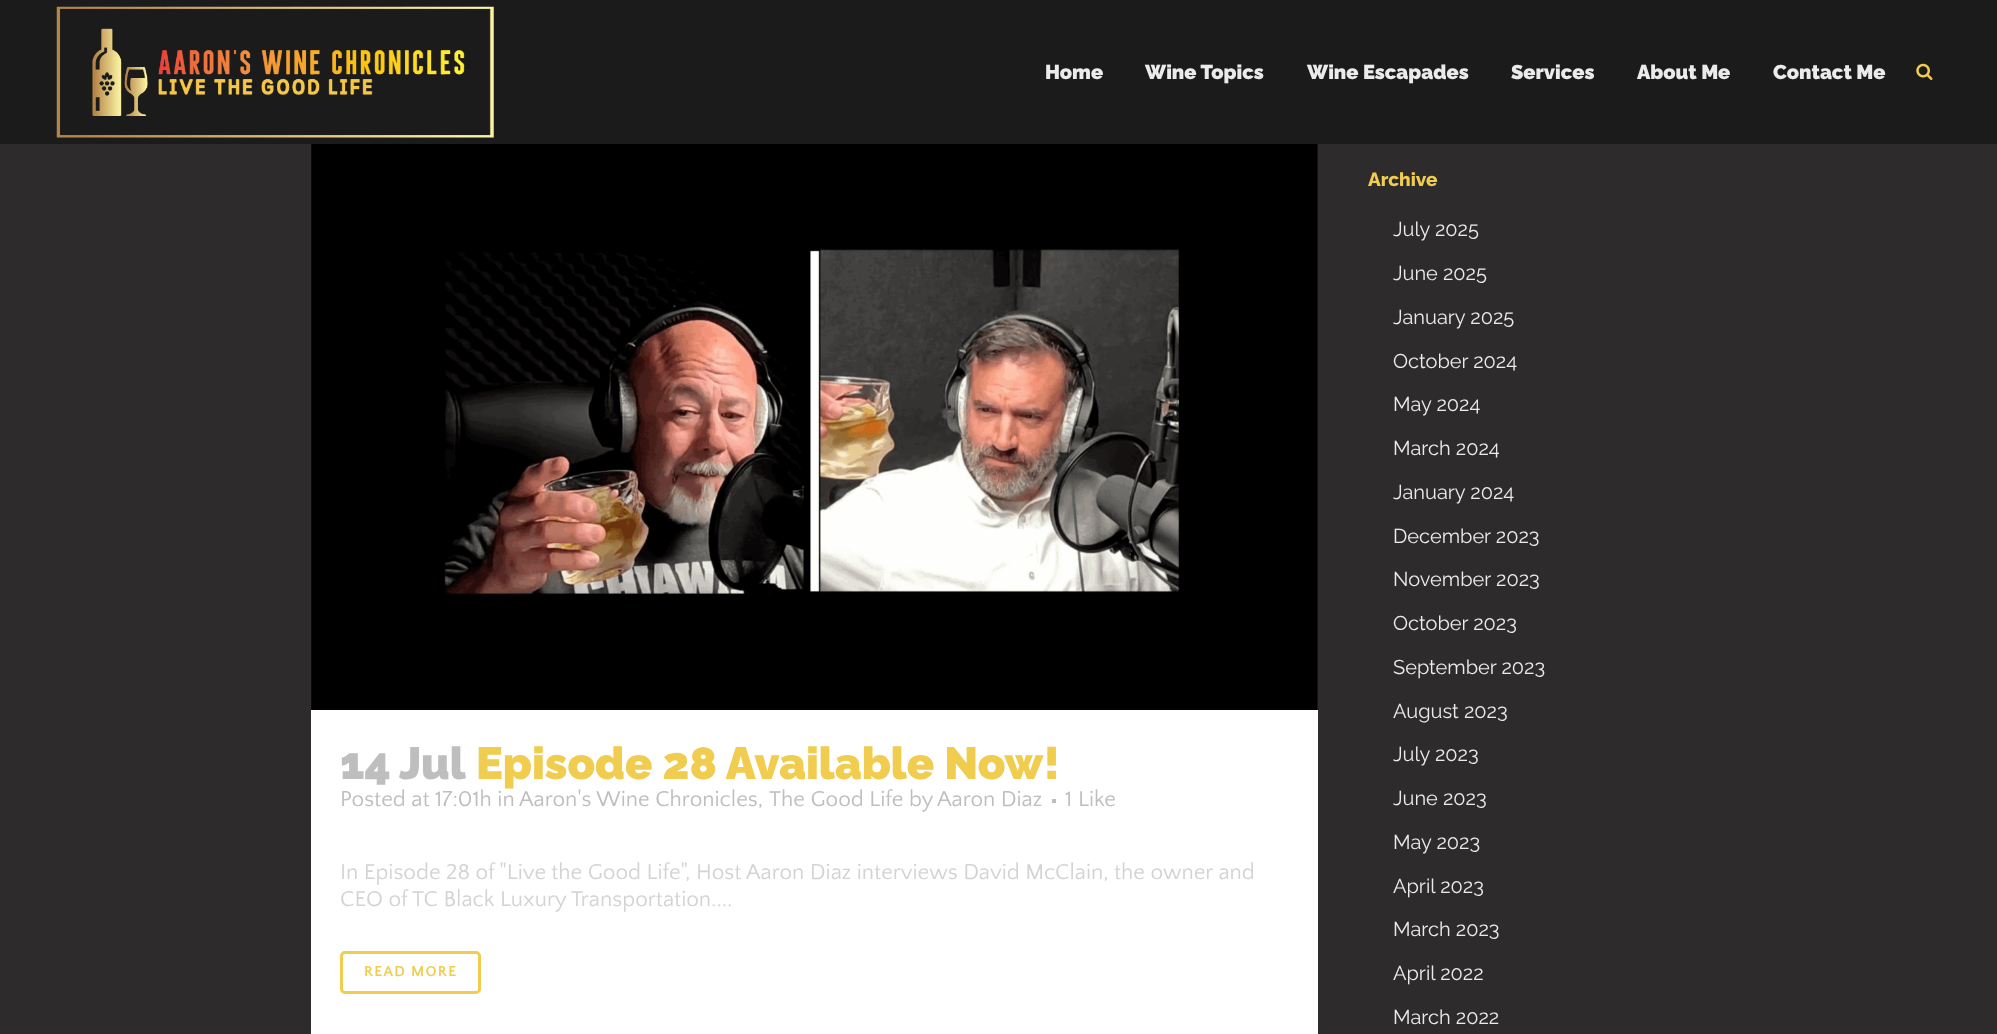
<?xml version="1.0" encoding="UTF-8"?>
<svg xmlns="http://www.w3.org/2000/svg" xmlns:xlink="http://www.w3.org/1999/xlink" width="1997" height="1034">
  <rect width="100%" height="100%" fill="#2d2b2b" />
  <rect width="1997" height="144" fill="#1b1b1b" />
  <image x="56" y="6" width="438" height="132" xlink:href="image1.png" />
  <image x="1916" y="63" width="17" height="17" xlink:href="image2.png" />
  <image x="311" y="144" width="1007" height="566" xlink:href="image3.png" />
  <rect x="311" y="710" width="1007" height="324" fill="#ffffff" />
  <rect x="1052" y="799" width="4" height="4" fill="#bebebe" />
  <rect x="341.5" y="952.5" width="138" height="40" rx="3.5" fill="none" stroke="#f0cc4f" stroke-width="3" />
  <text x="1045" y="79" style="font-family: Raleway; font-size: 20px; font-weight: 900; fill: #ebebeb">Home</text>
  <text x="1145" y="79" style="font-family: Raleway; font-size: 20px; font-weight: 900; fill: #ebebeb">Wine Topics</text>
  <text x="1307" y="79" style="font-family: Raleway; font-size: 20px; font-weight: 900; fill: #ebebeb">Wine Escapades</text>
  <text x="1511" y="79" style="font-family: Raleway; font-size: 20px; font-weight: 900; fill: #ebebeb">Services</text>
  <text x="1637" y="79" style="font-family: Raleway; font-size: 20px; font-weight: 900; fill: #ebebeb">About Me</text>
  <text x="1773" y="79" style="font-family: Raleway; font-size: 20px; font-weight: 900; fill: #ebebeb">Contact Me</text>
  <text x="340" y="779" word-spacing="-1" style="font-family: Raleway; font-size: 45px; font-weight: 900; fill: #bebebe">14 Jul</text>
  <text x="476" y="779" style="font-family: Raleway; font-size: 45px; font-weight: 900; fill: #f0cc4f">Episode 28 Available Now!</text>
  <text x="340" y="806" style="font-family: Quattrocento Sans; font-size: 22.5px; fill: #bebebe">Posted at 17:01h in</text>
  <text x="519" y="806" style="font-family: Quattrocento Sans; font-size: 22.5px; fill: #bebebe">Aaron's Wine Chronicles,</text>
  <text x="769" y="806" style="font-family: Quattrocento Sans; font-size: 22.5px; fill: #bebebe">The Good Life by</text>
  <text x="937" y="806" style="font-family: Quattrocento Sans; font-size: 22.5px; fill: #bebebe">Aaron Diaz</text>
  <text x="1065" y="806" style="font-family: Quattrocento Sans; font-size: 22.5px; fill: #bebebe">1</text>
  <text x="1078" y="806" style="font-family: Quattrocento Sans; font-size: 22.5px; fill: #bebebe">Like</text>
  <text x="340" y="879" style="font-family: Quattrocento Sans; font-size: 22.5px; fill: #d3d3d3">In Episode 28 of "Live the Good Life", Host Aaron Diaz interviews David McClain, the owner and</text>
  <text x="340" y="906" style="font-family: Quattrocento Sans; font-size: 22.5px; fill: #d3d3d3">CEO of TC Black Luxury Transportation....</text>
  <text x="364" y="976" style="font-family: Quattrocento Sans; font-size: 15px; font-weight: bold; letter-spacing: 1.25px; fill: #f0cc4f">READ MORE</text>
  <text x="1368" y="186" style="font-family: Raleway; font-size: 19px; font-weight: 800; fill: #f0cc4f">Archive</text>
  <text x="1393" y="236" style="font-family: Raleway; font-size: 20px; fill: #ebebeb">July 2025</text>
  <text x="1393" y="280" style="font-family: Raleway; font-size: 20px; fill: #ebebeb">June 2025</text>
  <text x="1393" y="324" style="font-family: Raleway; font-size: 20px; fill: #ebebeb">January 2025</text>
  <text x="1393" y="368" style="font-family: Raleway; font-size: 20px; fill: #ebebeb">October 2024</text>
  <text x="1393" y="411" style="font-family: Raleway; font-size: 20px; fill: #ebebeb">May 2024</text>
  <text x="1393" y="455" style="font-family: Raleway; font-size: 20px; fill: #ebebeb">March 2024</text>
  <text x="1393" y="499" style="font-family: Raleway; font-size: 20px; fill: #ebebeb">January 2024</text>
  <text x="1393" y="543" style="font-family: Raleway; font-size: 20px; fill: #ebebeb">December 2023</text>
  <text x="1393" y="586" style="font-family: Raleway; font-size: 20px; fill: #ebebeb">November 2023</text>
  <text x="1393" y="630" style="font-family: Raleway; font-size: 20px; fill: #ebebeb">October 2023</text>
  <text x="1393" y="674" style="font-family: Raleway; font-size: 20px; fill: #ebebeb">September 2023</text>
  <text x="1393" y="718" style="font-family: Raleway; font-size: 20px; fill: #ebebeb">August 2023</text>
  <text x="1393" y="761" style="font-family: Raleway; font-size: 20px; fill: #ebebeb">July 2023</text>
  <text x="1393" y="805" style="font-family: Raleway; font-size: 20px; fill: #ebebeb">June 2023</text>
  <text x="1393" y="849" style="font-family: Raleway; font-size: 20px; fill: #ebebeb">May 2023</text>
  <text x="1393" y="893" style="font-family: Raleway; font-size: 20px; fill: #ebebeb">April 2023</text>
  <text x="1393" y="936" style="font-family: Raleway; font-size: 20px; fill: #ebebeb">March 2023</text>
  <text x="1393" y="980" style="font-family: Raleway; font-size: 20px; fill: #ebebeb">April 2022</text>
  <text x="1393" y="1024" style="font-family: Raleway; font-size: 20px; fill: #ebebeb">March 2022</text>
</svg>
